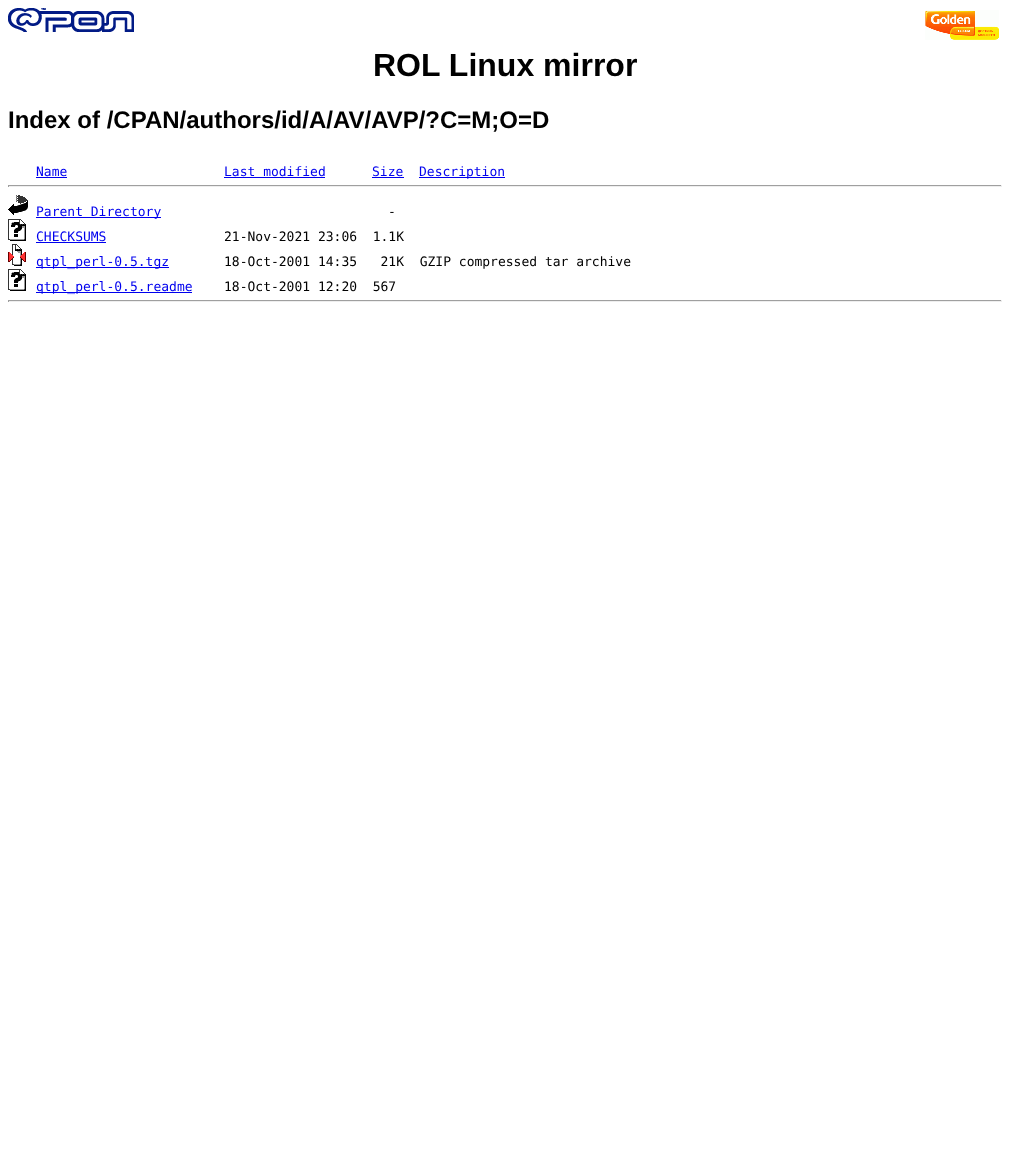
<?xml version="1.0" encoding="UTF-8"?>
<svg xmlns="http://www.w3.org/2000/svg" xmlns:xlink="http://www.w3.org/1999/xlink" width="1010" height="1153">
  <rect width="100%" height="100%" fill="#ffffff" />
  <image x="8" y="8" width="126" height="24" xlink:href="image1.png" />
  <image x="925" y="10" width="74" height="30" xlink:href="image2.png" />
  <rect x="36" y="177" width="31" height="1" fill="#0000ee" />
  <rect x="224" y="177" width="101" height="1" fill="#0000ee" />
  <rect x="372" y="177" width="32" height="1" fill="#0000ee" />
  <rect x="419" y="177" width="86" height="1" fill="#0000ee" />
  <rect x="8" y="185" width="994" height="1" fill="#9f9f9f" />
  <rect x="1001" y="185" width="1" height="2" fill="#eeeeee" />
  <rect x="8" y="186" width="994" height="1" fill="#eeeeee" />
  <rect x="8" y="185" width="1" height="2" fill="#9f9f9f" />
  <image x="8" y="195" width="20" height="20" xlink:href="image3.png" />
  <rect x="36" y="217" width="125" height="1" fill="#0000ee" />
  <image x="8" y="219" width="18" height="22" xlink:href="image4.png" />
  <rect x="36" y="242" width="70" height="1" fill="#0000ee" />
  <image x="8" y="244" width="18" height="22" xlink:href="image5.png" />
  <rect x="36" y="267" width="133" height="1" fill="#0000ee" />
  <image x="8" y="269" width="18" height="22" xlink:href="image4.png" />
  <rect x="36" y="292" width="156" height="1" fill="#0000ee" />
  <rect x="8" y="300" width="994" height="1" fill="#9f9f9f" />
  <rect x="1001" y="300" width="1" height="2" fill="#eeeeee" />
  <rect x="8" y="301" width="994" height="1" fill="#eeeeee" />
  <rect x="8" y="300" width="1" height="2" fill="#9f9f9f" />
  <text x="373" y="76" style="font-family: Liberation Sans; font-size: 32px; font-weight: bold; fill: #000000">ROL Linux mirror</text>
  <text x="8" y="128" style="font-family: Liberation Sans; font-size: 24px; font-weight: bold; fill: #000000">Index of /CPAN/authors/id/A/AV/AVP/?C=M;O=D</text>
  <text x="36" y="176" style="font-family: DejaVu Sans Mono; font-size: 13px; fill: #0000ee">Name</text>
  <text x="224" y="176" style="font-family: DejaVu Sans Mono; font-size: 13px; fill: #0000ee">Last modified</text>
  <text x="372" y="176" style="font-family: DejaVu Sans Mono; font-size: 13px; fill: #0000ee">Size</text>
  <text x="419" y="176" style="font-family: DejaVu Sans Mono; font-size: 13px; fill: #0000ee">Description</text>
  <text x="36" y="216" style="font-family: DejaVu Sans Mono; font-size: 13px; fill: #0000ee">Parent Directory</text>
  <text x="388" y="216" style="font-family: DejaVu Sans Mono; font-size: 13px; fill: #000000">-</text>
  <text x="36" y="241" style="font-family: DejaVu Sans Mono; font-size: 13px; fill: #0000ee">CHECKSUMS</text>
  <text x="224" y="241" style="font-family: DejaVu Sans Mono; font-size: 13px; fill: #000000" xml:space="preserve">21-Nov-2021 23:06  1.1K</text>
  <text x="36" y="266" style="font-family: DejaVu Sans Mono; font-size: 13px; fill: #0000ee">qtpl_perl-0.5.tgz</text>
  <text x="224" y="266" style="font-family: DejaVu Sans Mono; font-size: 13px; fill: #000000" xml:space="preserve">18-Oct-2001 14:35   21K  GZIP compressed tar archive</text>
  <text x="36" y="291" style="font-family: DejaVu Sans Mono; font-size: 13px; fill: #0000ee">qtpl_perl-0.5.readme</text>
  <text x="224" y="291" style="font-family: DejaVu Sans Mono; font-size: 13px; fill: #000000" xml:space="preserve">18-Oct-2001 12:20  567</text>
</svg>
